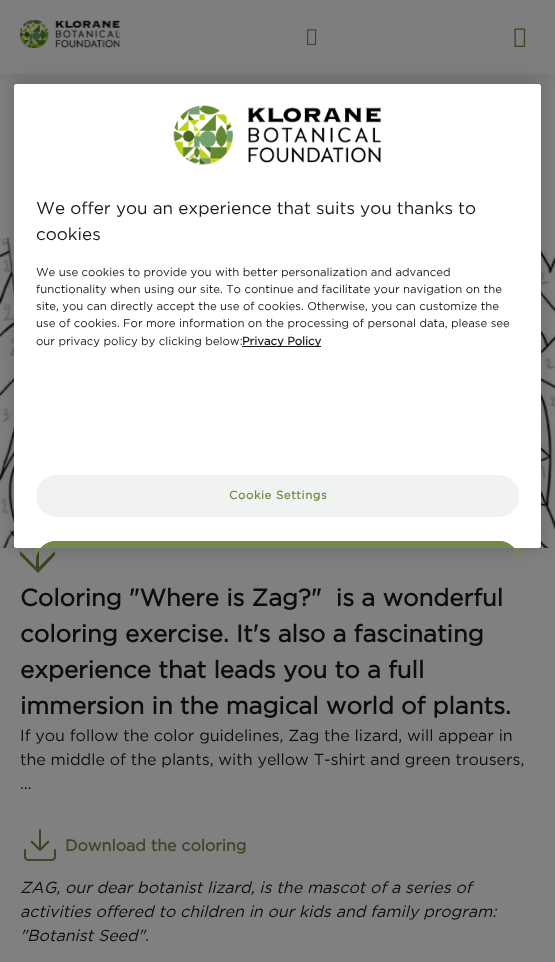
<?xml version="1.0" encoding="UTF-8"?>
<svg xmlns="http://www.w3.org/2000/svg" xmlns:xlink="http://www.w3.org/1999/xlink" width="555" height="962">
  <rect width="100%" height="100%" fill="#808080" />
  <rect y="5" width="555" height="74" fill="#000000" fill-opacity="0.1" filter="blur(10px)" />
  <rect width="555" height="74" fill="#7e7d80" />
  <image x="0" y="238" width="555" height="310" xlink:href="image5.png" />
  <path d="M 55 555 v -4 l -16 16 v -39 h -3 v 39 l -16 -16 v 4 l 18 18 z" fill="#3a4625" />
  <rect x="14" y="84" width="527" height="464" rx="2.5" fill="#000000" fill-opacity="0.2" filter="blur(9px)" />
  <rect x="14" y="84" width="527" height="464" rx="2.5" fill="#ffffff" />
  <image x="173" y="105" width="208" height="60" xlink:href="image1.png" />
  <rect x="242" y="346" width="79" height="1" fill="#181c15" />
  <rect x="36.5" y="475.5" width="482" height="41" rx="19.5" fill="#f1f3f2" stroke="#f1f3f2" />
  <path d="M 56 541 h 443 c 11 0 20 9 20 20 v -13 h -483 v 13 c 0 -11 9 -20 20 -20 z" fill="#738a49" />
  <path d="M 56 541 c -6 0 -12 3 -15 7 h 1 c 4 -4 9 -6 14 -6 h 443 c 5 0 10 2 14 6 h 1 c -3 -4 -9 -7 -15 -7 z" fill="#738a49" />
  <image x="20" y="20" width="100" height="28" xlink:href="image2.png" />
  <image x="307" y="29" width="10" height="16" xlink:href="image3.png" />
  <image x="514" y="28" width="12" height="19" xlink:href="image4.png" />
  <image x="24" y="829" width="32" height="32" xlink:href="image6.png" />
  <text x="36" y="214" style="font-family: Gotham; font-size: 17.1px; fill: #181c15">We offer you an experience that suits you thanks to</text>
  <text x="36" y="240" style="font-family: Gotham; font-size: 17.1px; fill: #181c15">cookies</text>
  <text x="36" y="276" style="font-family: Gotham; font-size: 11.4px; fill: #181c15">We use cookies to provide you with better personalization and advanced</text>
  <text x="36" y="293" style="font-family: Gotham; font-size: 11.4px; fill: #181c15">functionality when using our site. To continue and facilitate your navigation on the</text>
  <text x="36" y="310" style="font-family: Gotham; font-size: 11.4px; fill: #181c15">site, you can directly accept the use of cookies. Otherwise, you can customize the</text>
  <text x="36" y="327" style="font-family: Gotham; font-size: 11.4px; fill: #181c15">use of cookies. For more information on the processing of personal data, please see</text>
  <text x="36" y="345" style="font-family: Gotham; font-size: 11.4px; fill: #181c15">our privacy policy by clicking below:</text>
  <text x="242" y="345" style="font-family: Gotham; font-size: 11.4px; font-weight: bold; fill: #181c15">Privacy Policy</text>
  <text x="229" y="499" style="font-family: Gotham; font-size: 11.4px; font-weight: bold; letter-spacing: 0.6px; fill: #738a49">Cookie Settings</text>
  <text x="20" y="606" style="font-family: Gotham; font-size: 24px; font-weight: bold; fill: #0c0e0b" xml:space="preserve">Coloring "Where is Zag?"  is a wonderful</text>
  <text x="20" y="642" style="font-family: Gotham; font-size: 24px; font-weight: bold; fill: #0c0e0b">coloring exercise. It's also a fascinating</text>
  <text x="20" y="678" style="font-family: Gotham; font-size: 24px; font-weight: bold; fill: #0c0e0b">experience that leads you to a full</text>
  <text x="20" y="714" style="font-family: Gotham; font-size: 24px; font-weight: bold; fill: #0c0e0b">immersion in the magical world of plants.</text>
  <text x="20" y="741" style="font-family: Gotham; font-size: 16px; fill: #0c0e0b">If you follow the color guidelines, Zag the lizard, will appear in</text>
  <text x="20" y="765" style="font-family: Gotham; font-size: 16px; fill: #0c0e0b">the middle of the plants, with yellow T-shirt and green trousers,</text>
  <text x="20" y="789" style="font-family: Gotham; font-size: 16px; fill: #0c0e0b">…</text>
  <text x="65" y="851" style="font-family: Gotham; font-size: 16px; font-weight: bold; fill: #3a4625">Download the coloring</text>
  <text x="20" y="893" style="font-family: Gotham; font-size: 16px; font-style: italic; fill: #0c0e0b">ZAG, our dear botanist lizard, is the mascot of a series of</text>
  <text x="20" y="917" style="font-family: Gotham; font-size: 16px; font-style: italic; fill: #0c0e0b">activities offered to children in our kids and family program:</text>
  <text x="20" y="941" style="font-family: Gotham; font-size: 16px; font-style: italic; fill: #0c0e0b">"Botanist Seed".</text>
</svg>
